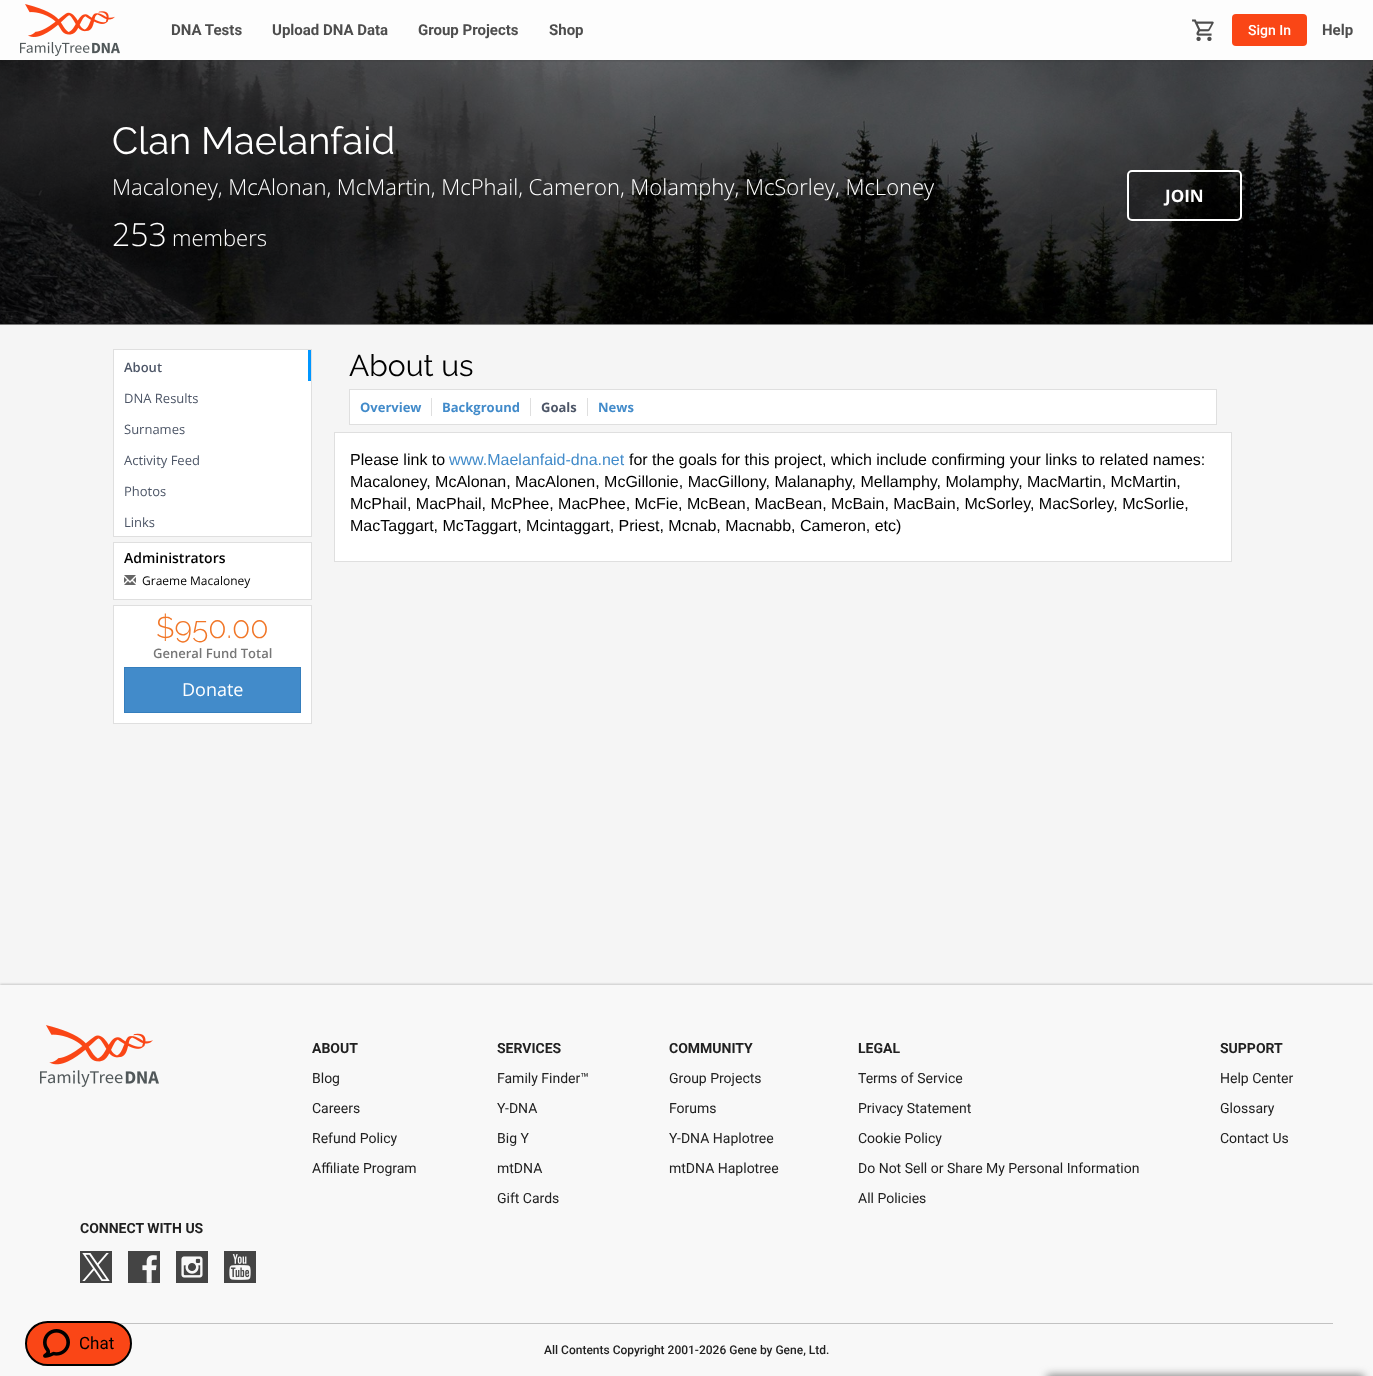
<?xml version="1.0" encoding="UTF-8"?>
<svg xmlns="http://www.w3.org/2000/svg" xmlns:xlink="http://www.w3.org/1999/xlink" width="1373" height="1376">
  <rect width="100%" height="100%" fill="#f5f5f5" />
  <image x="0" y="60" width="1373" height="264" xlink:href="image3.png" />
  <rect y="1" width="1373" height="60" fill="#212121" fill-opacity="0.21" filter="blur(1px)" />
  <rect width="1373" height="60" fill="#fdfdfd" />
  <image x="20" y="4" width="100" height="52" xlink:href="image1.png" />
  <image x="1192" y="19" width="22" height="22" xlink:href="image2.png" />
  <rect x="1232" y="14" width="75" height="32" rx="4" fill="#fa4616" />
  <rect y="324" width="1373" height="1" fill="#797979" />
  <rect x="1128" y="171" width="113" height="49" rx="4" fill="#000000" fill-opacity="0.25" stroke="#ffffff" stroke-width="2" />
  <rect x="113.5" y="349.5" width="198" height="187" fill="#ffffff" stroke="#dfdfdf" />
  <rect x="308" y="350" width="3" height="31" fill="#0096ff" />
  <rect x="113.5" y="542.5" width="198" height="57" fill="#ffffff" stroke="#dfdfdf" />
  <image x="124" y="575" width="12" height="10" xlink:href="image4.png" />
  <rect x="113.5" y="605.5" width="198" height="118" fill="#ffffff" stroke="#dfdfdf" />
  <rect x="124.5" y="667.5" width="176" height="45" fill="#428bca" stroke="#357ebd" />
  <rect x="349.5" y="389.5" width="867" height="35" fill="#ffffff" stroke="#dfdfdf" />
  <rect x="431" y="398" width="1" height="18" fill="#dfdfdf" />
  <rect x="530" y="398" width="1" height="18" fill="#dfdfdf" />
  <rect x="587" y="398" width="1" height="18" fill="#dfdfdf" />
  <rect x="334.5" y="432.5" width="897" height="129" fill="#ffffff" stroke="#dfdfdf" />
  <rect y="984" width="1373" height="391" fill="#212121" fill-opacity="0.21" filter="blur(1px)" />
  <rect y="985" width="1373" height="391" fill="#f8f8f8" />
  <image x="40" y="1025" width="119" height="62" xlink:href="image5.png" />
  <image x="80" y="1251" width="32" height="32" xlink:href="image6.png" />
  <image x="128" y="1251" width="32" height="32" xlink:href="image7.png" />
  <image x="176" y="1251" width="32" height="32" xlink:href="image8.png" />
  <image x="224" y="1251" width="32" height="32" xlink:href="image9.png" />
  <rect x="118" y="1323" width="1215" height="1" fill="#c2c2c2" />
  <rect x="26" y="1322" width="105" height="43" rx="21.5" fill="#fa4616" stroke="#000000" stroke-width="2" />
  <image x="43" y="1329" width="27" height="29" xlink:href="image10.png" />
  <rect x="1047" y="1375" width="317" height="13" fill="#808080" filter="blur(4px)" />
  <text x="171" y="35" style="font-family: Roboto; font-size: 15px; font-weight: bold; fill: #4d4d4d">DNA Tests</text>
  <text x="272" y="35" style="font-family: Roboto; font-size: 15px; font-weight: bold; fill: #4d4d4d">Upload DNA Data</text>
  <text x="418" y="35" style="font-family: Roboto; font-size: 15px; font-weight: bold; fill: #4d4d4d">Group Projects</text>
  <text x="549" y="35" style="font-family: Roboto; font-size: 15px; font-weight: bold; fill: #4d4d4d">Shop</text>
  <text x="1248" y="35" style="font-family: Roboto; font-size: 14px; font-weight: 500; fill: #ffffff">Sign In</text>
  <text x="1322" y="35" style="font-family: Roboto; font-size: 15px; font-weight: bold; fill: #4d4d4d">Help</text>
  <text x="112" y="154" style="font-family: Raleway; font-size: 38px; fill: #ffffff">Clan Maelanfaid</text>
  <text x="112" y="195" style="font-family: Open Sans; font-size: 22px; font-weight: 300; fill: #ffffff">Macaloney, McAlonan, McMartin, McPhail, Cameron, Molamphy, McSorley, McLoney</text>
  <text x="112" y="246" style="font-family: Open Sans; font-size: 32px; font-weight: 300; fill: #ffffff">253</text>
  <text x="172" y="246" style="font-family: Open Sans; font-size: 22px; font-weight: 300; fill: #ffffff">members</text>
  <text x="1165" y="202" style="font-family: Open Sans; font-size: 17px; font-weight: bold; fill: #ffffff">JOIN</text>
  <text x="124" y="372" style="font-family: Open Sans; font-size: 13px; font-weight: 600; fill: #4d5667">About</text>
  <text x="124" y="403" style="font-family: Open Sans; font-size: 13px; fill: #4d5667">DNA Results</text>
  <text x="124" y="434" style="font-family: Open Sans; font-size: 13px; fill: #4d5667">Surnames</text>
  <text x="124" y="465" style="font-family: Open Sans; font-size: 13px; fill: #4d5667">Activity Feed</text>
  <text x="124" y="496" style="font-family: Open Sans; font-size: 13px; fill: #4d5667">Photos</text>
  <text x="124" y="527" style="font-family: Open Sans; font-size: 13px; fill: #4d5667">Links</text>
  <text x="124" y="563" style="font-family: Open Sans; font-size: 14px; font-weight: 600; fill: #000000">Administrators</text>
  <text x="142" y="585" style="font-family: Open Sans; font-size: 12px; fill: #000000">Graeme Macaloney</text>
  <text x="156" y="638" style="font-family: Raleway; font-size: 30px; font-weight: 300; fill: #f17627">$950.00</text>
  <text x="153" y="658" style="font-family: Open Sans; font-size: 13px; font-weight: 600; fill: #777777">General Fund Total</text>
  <text x="182" y="696" style="font-family: Open Sans; font-size: 18px; fill: #ffffff">Donate</text>
  <text x="349" y="376" style="font-family: Raleway; font-size: 30px; fill: #000000">About us</text>
  <text x="360" y="412" style="font-family: Open Sans; font-size: 13px; font-weight: bold; fill: #428bca">Overview</text>
  <text x="442" y="412" style="font-family: Open Sans; font-size: 13px; font-weight: bold; fill: #428bca">Background</text>
  <text x="541" y="412" style="font-family: Open Sans; font-size: 13px; font-weight: bold; fill: #4d5667">Goals</text>
  <text x="598" y="412" style="font-family: Open Sans; font-size: 13px; font-weight: bold; fill: #428bca">News</text>
  <text x="350" y="465" style="font-family: Liberation Sans; font-size: 16px; fill: #000000">Please link to</text>
  <text x="449" y="465" style="font-family: Liberation Sans; font-size: 16px; fill: #428bca">www.Maelanfaid-dna.net</text>
  <text x="629" y="465" style="font-family: Liberation Sans; font-size: 16px; fill: #000000">for the goals for this project, which include confirming your links to related names:</text>
  <text x="350" y="487" style="font-family: Liberation Sans; font-size: 16px; fill: #000000">Macaloney, McAlonan, MacAlonen, McGillonie, MacGillony, Malanaphy, Mellamphy, Molamphy, MacMartin, McMartin,</text>
  <text x="350" y="509" style="font-family: Liberation Sans; font-size: 16px; fill: #000000">McPhail, MacPhail, McPhee, MacPhee, McFie, McBean, MacBean, McBain, MacBain, McSorley, MacSorley, McSorlie,</text>
  <text x="350" y="531" style="font-family: Liberation Sans; font-size: 16px; fill: #000000">MacTaggart, McTaggart, Mcintaggart, Priest, Mcnab, Macnabb, Cameron, etc)</text>
  <text x="312" y="1053" style="font-family: Roboto; font-size: 14px; font-weight: bold; fill: #212121">ABOUT</text>
  <text x="312" y="1083" style="font-family: Roboto; font-size: 14px; fill: #212121">Blog</text>
  <text x="312" y="1113" style="font-family: Roboto; font-size: 14px; fill: #212121">Careers</text>
  <text x="312" y="1143" style="font-family: Roboto; font-size: 14px; fill: #212121">Refund Policy</text>
  <text x="312" y="1173" style="font-family: Roboto; font-size: 14px; fill: #212121">Affiliate Program</text>
  <text x="497" y="1053" style="font-family: Roboto; font-size: 14px; font-weight: bold; fill: #212121">SERVICES</text>
  <text x="497" y="1083" style="font-family: Roboto; font-size: 14px; fill: #212121">Family Finder™</text>
  <text x="497" y="1113" style="font-family: Roboto; font-size: 14px; fill: #212121">Y-DNA</text>
  <text x="497" y="1143" style="font-family: Roboto; font-size: 14px; fill: #212121">Big Y</text>
  <text x="497" y="1173" style="font-family: Roboto; font-size: 14px; fill: #212121">mtDNA</text>
  <text x="497" y="1203" style="font-family: Roboto; font-size: 14px; fill: #212121">Gift Cards</text>
  <text x="669" y="1053" style="font-family: Roboto; font-size: 14px; font-weight: bold; fill: #212121">COMMUNITY</text>
  <text x="669" y="1083" style="font-family: Roboto; font-size: 14px; fill: #212121">Group Projects</text>
  <text x="669" y="1113" style="font-family: Roboto; font-size: 14px; fill: #212121">Forums</text>
  <text x="669" y="1143" style="font-family: Roboto; font-size: 14px; fill: #212121">Y-DNA Haplotree</text>
  <text x="669" y="1173" style="font-family: Roboto; font-size: 14px; fill: #212121">mtDNA Haplotree</text>
  <text x="858" y="1053" style="font-family: Roboto; font-size: 14px; font-weight: bold; fill: #212121">LEGAL</text>
  <text x="858" y="1083" style="font-family: Roboto; font-size: 14px; fill: #212121">Terms of Service</text>
  <text x="858" y="1113" style="font-family: Roboto; font-size: 14px; fill: #212121">Privacy Statement</text>
  <text x="858" y="1143" style="font-family: Roboto; font-size: 14px; fill: #212121">Cookie Policy</text>
  <text x="858" y="1173" style="font-family: Roboto; font-size: 14px; fill: #212121">Do Not Sell or Share My Personal Information</text>
  <text x="858" y="1203" style="font-family: Roboto; font-size: 14px; fill: #212121">All Policies</text>
  <text x="1220" y="1053" style="font-family: Roboto; font-size: 14px; font-weight: bold; fill: #212121">SUPPORT</text>
  <text x="1220" y="1083" style="font-family: Roboto; font-size: 14px; fill: #212121">Help Center</text>
  <text x="1220" y="1113" style="font-family: Roboto; font-size: 14px; fill: #212121">Glossary</text>
  <text x="1220" y="1143" style="font-family: Roboto; font-size: 14px; fill: #212121">Contact Us</text>
  <text x="80" y="1233" style="font-family: Roboto; font-size: 14px; font-weight: bold; fill: #212121">CONNECT WITH US</text>
  <text x="544" y="1354" style="font-family: Roboto; font-size: 12px; font-weight: 500; fill: #212121">All Contents Copyright 2001-2026 Gene by Gene, Ltd.</text>
  <text x="79" y="1349" style="font-family: Roboto; font-size: 17px; fill: #000000">Chat</text>
</svg>
